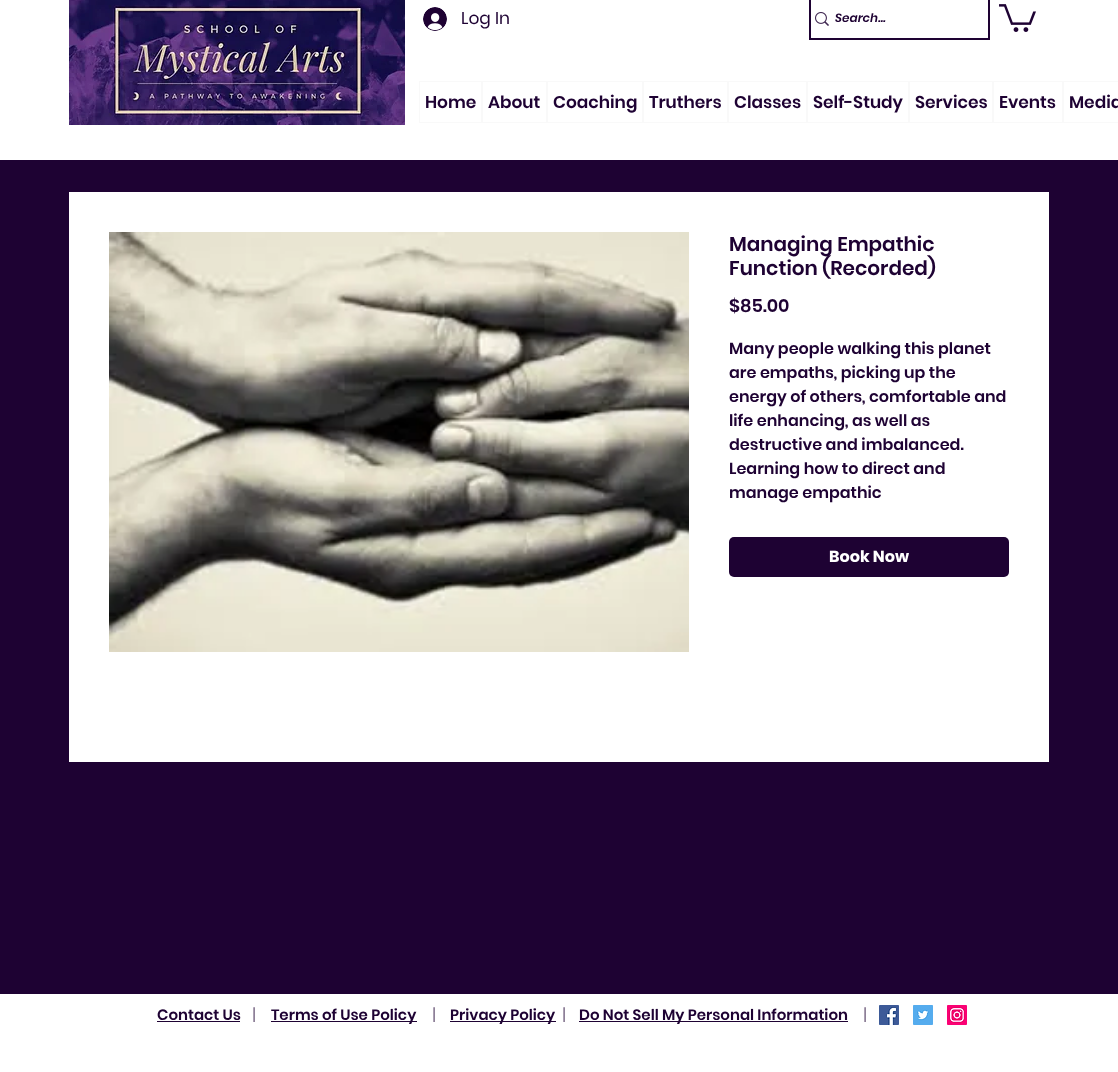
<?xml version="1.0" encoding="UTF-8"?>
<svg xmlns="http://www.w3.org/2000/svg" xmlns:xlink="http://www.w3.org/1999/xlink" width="1118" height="1072">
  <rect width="100%" height="100%" fill="#1e0233" />
  <rect width="1118" height="160" fill="#ffffff" />
  <image x="69" y="0" width="336" height="125" xlink:href="image1.png" />
  <image x="423" y="7" width="24" height="24" xlink:href="image2.png" />
  <rect x="810" y="-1" width="179" height="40" fill="none" stroke="#1e0233" stroke-width="2" />
  <image x="815" y="12" width="14" height="14" xlink:href="image3.png" />
  <image x="999" y="4" width="37" height="28" xlink:href="image4.png" />
  <rect x="419.5" y="81.5" width="62" height="41" fill="none" stroke="#f9f9f9" />
  <rect x="482.5" y="81.5" width="64" height="41" fill="none" stroke="#f9f9f9" />
  <rect x="547.5" y="81.5" width="95" height="41" fill="none" stroke="#f9f9f9" />
  <rect x="643.5" y="81.5" width="84" height="41" fill="none" stroke="#f9f9f9" />
  <rect x="728.5" y="81.5" width="78" height="41" fill="none" stroke="#f9f9f9" />
  <rect x="807.5" y="81.5" width="101" height="41" fill="none" stroke="#f9f9f9" />
  <rect x="909.5" y="81.5" width="83" height="41" fill="none" stroke="#f9f9f9" />
  <rect x="993.5" y="81.5" width="69" height="41" fill="none" stroke="#f9f9f9" />
  <rect x="1063.5" y="81.5" width="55" height="41" fill="none" stroke="#f9f9f9" />
  <rect x="69" y="192" width="980" height="570" fill="#ffffff" />
  <image x="109" y="232" width="580" height="420" xlink:href="image5.png" />
  <rect x="729" y="537" width="280" height="40" rx="5" fill="#1e0233" />
  <rect y="994" width="1118" height="78" fill="#ffffff" />
  <rect x="157" y="1021" width="83" height="1" fill="#1e0233" />
  <rect x="271" y="1021" width="146" height="1" fill="#1e0233" />
  <rect x="450" y="1021" width="106" height="1" fill="#1e0233" />
  <rect x="579" y="1021" width="269" height="1" fill="#1e0233" />
  <image x="879" y="1005" width="20" height="20" xlink:href="image6.png" />
  <image x="913" y="1005" width="20" height="20" xlink:href="image7.png" />
  <image x="947" y="1005" width="20" height="20" xlink:href="image8.png" />
  <text x="461" y="24" style="font-family: Poppins; font-size: 17px; fill: #1e0233">Log In</text>
  <text x="835" y="22" style="font-family: Poppins; font-size: 12px; font-weight: 600; font-style: italic; fill: #1e0233">Search...</text>
  <text x="425" y="108" style="font-family: Poppins; font-size: 17px; font-weight: 600; fill: #1e0233">Home</text>
  <text x="488" y="108" style="font-family: Poppins; font-size: 17px; font-weight: 600; fill: #1e0233">About</text>
  <text x="553" y="108" style="font-family: Poppins; font-size: 17px; font-weight: 600; fill: #1e0233">Coaching</text>
  <text x="649" y="108" style="font-family: Poppins; font-size: 17px; font-weight: 600; fill: #1e0233">Truthers</text>
  <text x="734" y="108" style="font-family: Poppins; font-size: 17px; font-weight: 600; fill: #1e0233">Classes</text>
  <text x="813" y="108" style="font-family: Poppins; font-size: 17px; font-weight: 600; fill: #1e0233">Self-Study</text>
  <text x="915" y="108" style="font-family: Poppins; font-size: 17px; font-weight: 600; fill: #1e0233">Services</text>
  <text x="999" y="108" style="font-family: Poppins; font-size: 17px; font-weight: 600; fill: #1e0233">Events</text>
  <text x="1069" y="108" style="font-family: Poppins; font-size: 17px; font-weight: 600; fill: #1e0233">Media</text>
  <text x="729" y="251" style="font-family: Poppins; font-size: 20px; font-weight: 600; fill: #1e0233">Managing Empathic</text>
  <text x="729" y="275" style="font-family: Poppins; font-size: 20px; font-weight: 600; fill: #1e0233">Function (Recorded)</text>
  <text x="729" y="312" style="font-family: Poppins; font-size: 18px; font-weight: 600; fill: #1e0233">$85.00</text>
  <text x="729" y="354" style="font-family: Poppins; font-size: 16px; font-weight: 600; fill: #1e0233">Many people walking this planet</text>
  <text x="729" y="378" style="font-family: Poppins; font-size: 16px; font-weight: 600; fill: #1e0233">are empaths, picking up the</text>
  <text x="729" y="402" style="font-family: Poppins; font-size: 16px; font-weight: 600; fill: #1e0233">energy of others, comfortable and</text>
  <text x="729" y="426" style="font-family: Poppins; font-size: 16px; font-weight: 600; fill: #1e0233">life enhancing, as well as</text>
  <text x="729" y="450" style="font-family: Poppins; font-size: 16px; font-weight: 600; fill: #1e0233">destructive and imbalanced.</text>
  <text x="729" y="474" style="font-family: Poppins; font-size: 16px; font-weight: 600; fill: #1e0233">Learning how to direct and</text>
  <text x="729" y="498" style="font-family: Poppins; font-size: 16px; font-weight: 600; fill: #1e0233">manage empathic</text>
  <text x="829" y="562" style="font-family: Poppins; font-size: 16px; font-weight: bold; fill: #ffffff">Book Now</text>
  <text x="157" y="1020" style="font-family: Poppins; font-size: 15px; font-weight: 600; fill: #1e0233">Contact Us</text>
  <text x="252" y="1022" style="font-family: Poppins; font-size: 20px; font-weight: 200; fill: #1e0233">l</text>
  <text x="271" y="1020" style="font-family: Poppins; font-size: 15px; font-weight: 600; fill: #1e0233">Terms of Use Policy</text>
  <text x="432" y="1022" style="font-family: Poppins; font-size: 20px; font-weight: 200; fill: #1e0233">l</text>
  <text x="450" y="1020" style="font-family: Poppins; font-size: 15px; font-weight: 600; fill: #1e0233">Privacy Policy</text>
  <text x="562" y="1022" style="font-family: Poppins; font-size: 20px; font-weight: 200; fill: #1e0233">l</text>
  <text x="579" y="1020" style="font-family: Poppins; font-size: 15px; font-weight: 600; fill: #1e0233">Do Not Sell My Personal Information</text>
  <text x="863" y="1022" style="font-family: Poppins; font-size: 20px; font-weight: 200; fill: #1e0233">l</text>
</svg>
